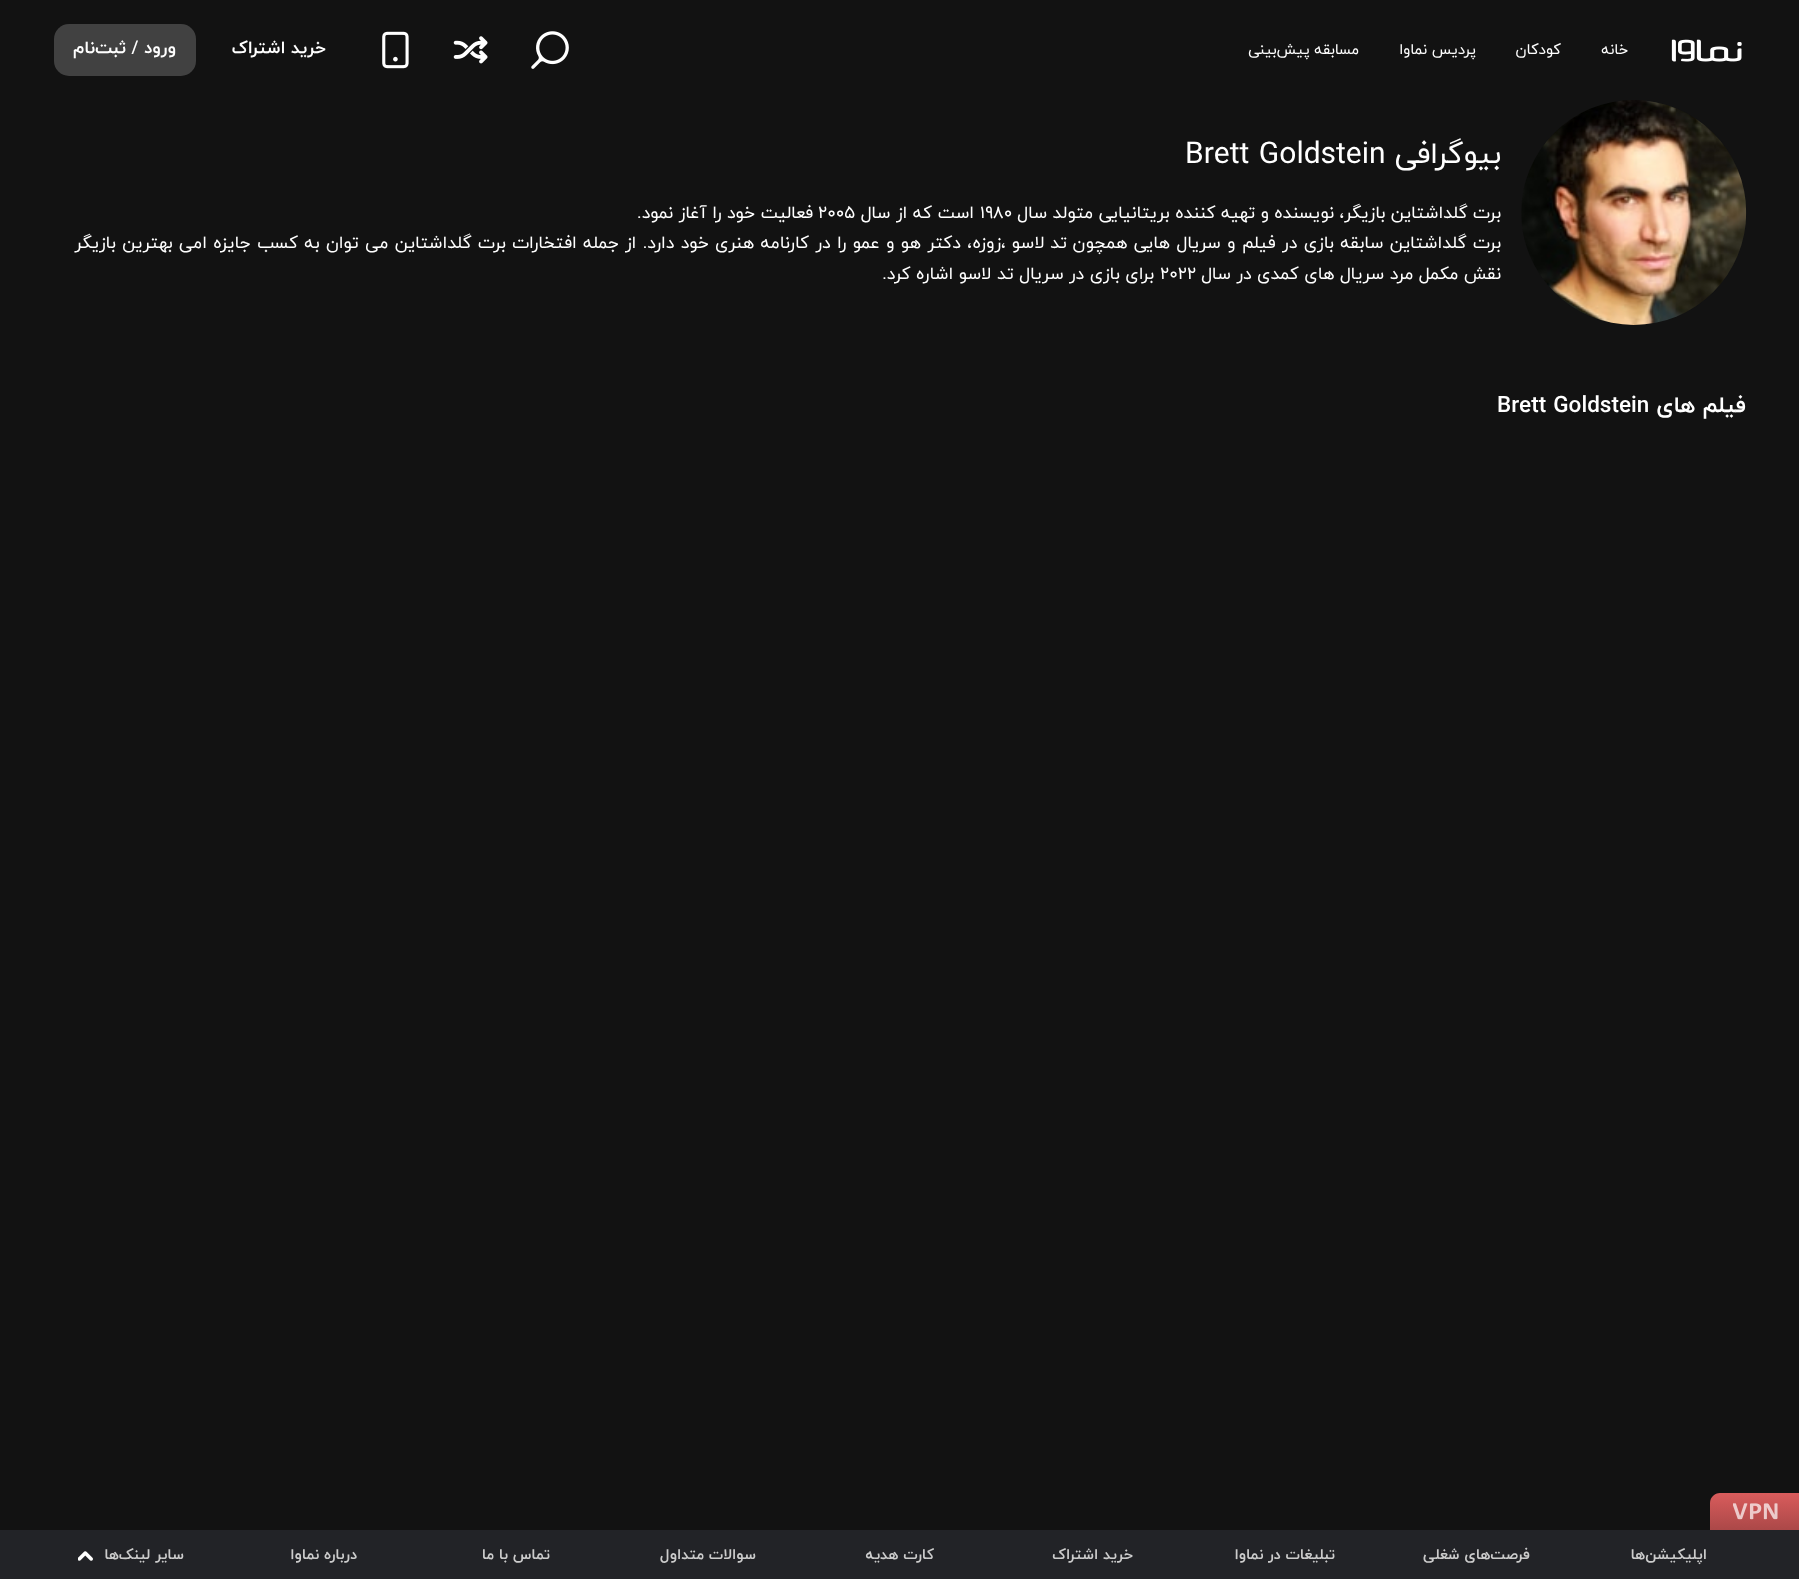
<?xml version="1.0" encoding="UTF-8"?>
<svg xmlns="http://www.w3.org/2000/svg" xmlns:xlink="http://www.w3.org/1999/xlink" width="1799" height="1579">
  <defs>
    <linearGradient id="g1" gradientUnits="userSpaceOnUse" x1="1755" y1="1493" x2="1755" y2="1530"><stop offset="0" stop-color="#d95c5c" /><stop offset="1" stop-color="#ab4848" /></linearGradient>
  </defs>
  <rect width="100%" height="100%" fill="#121212" />
  <image x="1671" y="39" width="71" height="23" xlink:href="image1.png" />
  <image x="531" y="31" width="38" height="38" xlink:href="image2.png" />
  <image x="453" y="36" width="35" height="28" xlink:href="image3.png" />
  <image x="382" y="31" width="27" height="38" xlink:href="image4.png" />
  <rect x="54" y="24" width="142" height="52" rx="15" fill="#414141" />
  <image x="1521" y="100" width="226" height="225" xlink:href="image5.png" />
  <path d="M 1720 1493 h 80 v 37 h -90 v -27 c 0 -5.5 4.5 -10 10 -10 z" fill="url(#g1)" />
  <image x="1733" y="1503" width="45" height="17" xlink:href="image6.png" />
  <rect y="1530" width="1799" height="49" fill="#222327" />
  <image x="78" y="1551" width="15" height="10" xlink:href="image7.png" />
  <text x="1628" y="54" style="font-family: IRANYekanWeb; font-size: 15px; direction: rtl; fill: #ffffff">خانه</text>
  <text x="1561" y="54" style="font-family: IRANYekanWeb; font-size: 15px; direction: rtl; fill: #ffffff">کودکان</text>
  <text x="1476" y="54" style="font-family: IRANYekanWeb; font-size: 15px; direction: rtl; fill: #ffffff">پردیس نماوا</text>
  <text x="1359" y="54" style="font-family: IRANYekanWeb; font-size: 15px; direction: rtl; fill: #ffffff">مسابقه پیش‌بینی</text>
  <text x="326" y="53" style="font-family: IRANYekanWeb; font-size: 17.5px; font-weight: bold; direction: rtl; fill: #ffffff">خرید اشتراک</text>
  <text x="176" y="53" style="font-family: IRANYekanWeb; font-size: 17.5px; font-weight: bold; direction: rtl; fill: #ffffff">ورود / ثبت‌نام</text>
  <text x="1501" y="163" style="font-family: IRANYekanWeb; font-size: 30px; direction: rtl; fill: #ffffff">بیوگرافی</text>
  <text x="1185" y="163" style="font-family: IRANYekanWeb; font-size: 30px; fill: #ffffff">Brett Goldstein</text>
  <text x="1501" y="218" style="font-family: IRANYekanWeb; font-size: 17.5px; direction: rtl; fill: #ffffff">برت گلداشتاین بازیگر، نویسنده و تهیه کننده بریتانیایی متولد سال</text>
  <text x="980" y="218" style="font-family: IRANYekanWeb; font-size: 17.5px; fill: #ffffff">۱۹۸۰</text>
  <text x="974" y="218" style="font-family: IRANYekanWeb; font-size: 17.5px; direction: rtl; fill: #ffffff">است که از سال</text>
  <text x="818" y="218" style="font-family: IRANYekanWeb; font-size: 17.5px; fill: #ffffff">۲۰۰۵</text>
  <text x="813" y="218" style="font-family: IRANYekanWeb; font-size: 17.5px; direction: rtl; fill: #ffffff">فعالیت خود را آغاز نمود.</text>
  <text x="1501" y="248" word-spacing="1" style="font-family: IRANYekanWeb; font-size: 17.5px; direction: rtl; fill: #ffffff">برت گلداشتاین سابقه بازی در فیلم و سریال هایی همچون</text>
  <text x="1067" y="248" style="font-family: IRANYekanWeb; font-size: 17.5px; direction: rtl; fill: #ffffff">تد لاسو</text>
  <text x="1001" y="248" style="font-family: IRANYekanWeb; font-size: 17.5px; fill: #ffffff">،</text>
  <text x="1001" y="248" style="font-family: IRANYekanWeb; font-size: 17.5px; direction: rtl; fill: #ffffff">زوزه</text>
  <text x="972" y="248" word-spacing="0.9" style="font-family: IRANYekanWeb; font-size: 17.5px; direction: rtl; fill: #ffffff">، دکتر هو و عمو را در کارنامه هنری خود دارد. از جمله افتخارات برت گلداشتاین می توان به کسب جایزه امی بهترین بازیگر</text>
  <text x="1501" y="279" style="font-family: IRANYekanWeb; font-size: 17.5px; direction: rtl; fill: #ffffff">نقش مکمل مرد سریال های کمدی در سال</text>
  <text x="1160" y="279" style="font-family: IRANYekanWeb; font-size: 17.5px; fill: #ffffff">۲۰۲۲</text>
  <text x="1154" y="279" style="font-family: IRANYekanWeb; font-size: 17.5px; direction: rtl; fill: #ffffff">برای بازی در سریال تد لاسو اشاره کرد.</text>
  <text x="1746" y="412" style="font-family: IRANYekanWeb; font-size: 22.5px; font-weight: bold; direction: rtl; fill: #ffffff">فیلم های</text>
  <text x="1497" y="412" style="font-family: IRANYekanWeb; font-size: 22.5px; font-weight: bold; fill: #ffffff">Brett Goldstein</text>
  <text x="1707" y="1559" style="font-family: IRANYekanWeb; font-size: 15px; font-weight: bold; direction: rtl; fill: #cccccc">اپلیکیشن‌ها</text>
  <text x="1530" y="1559" style="font-family: IRANYekanWeb; font-size: 15px; font-weight: bold; direction: rtl; fill: #cccccc">فرصت‌های شغلی</text>
  <text x="1335" y="1559" style="font-family: IRANYekanWeb; font-size: 15px; font-weight: bold; direction: rtl; fill: #cccccc">تبلیغات در نماوا</text>
  <text x="1133" y="1559" style="font-family: IRANYekanWeb; font-size: 15px; font-weight: bold; direction: rtl; fill: #cccccc">خرید اشتراک</text>
  <text x="934" y="1559" style="font-family: IRANYekanWeb; font-size: 15px; font-weight: bold; direction: rtl; fill: #cccccc">کارت هدیه</text>
  <text x="756" y="1559" style="font-family: IRANYekanWeb; font-size: 15px; font-weight: bold; direction: rtl; fill: #cccccc">سوالات متداول</text>
  <text x="550" y="1559" style="font-family: IRANYekanWeb; font-size: 15px; font-weight: bold; direction: rtl; fill: #cccccc">تماس با ما</text>
  <text x="357" y="1559" style="font-family: IRANYekanWeb; font-size: 15px; font-weight: bold; direction: rtl; fill: #cccccc">درباره نماوا</text>
  <text x="184" y="1559" style="font-family: IRANYekanWeb; font-size: 15px; font-weight: bold; direction: rtl; fill: #cccccc">سایر لینک‌ها</text>
</svg>
